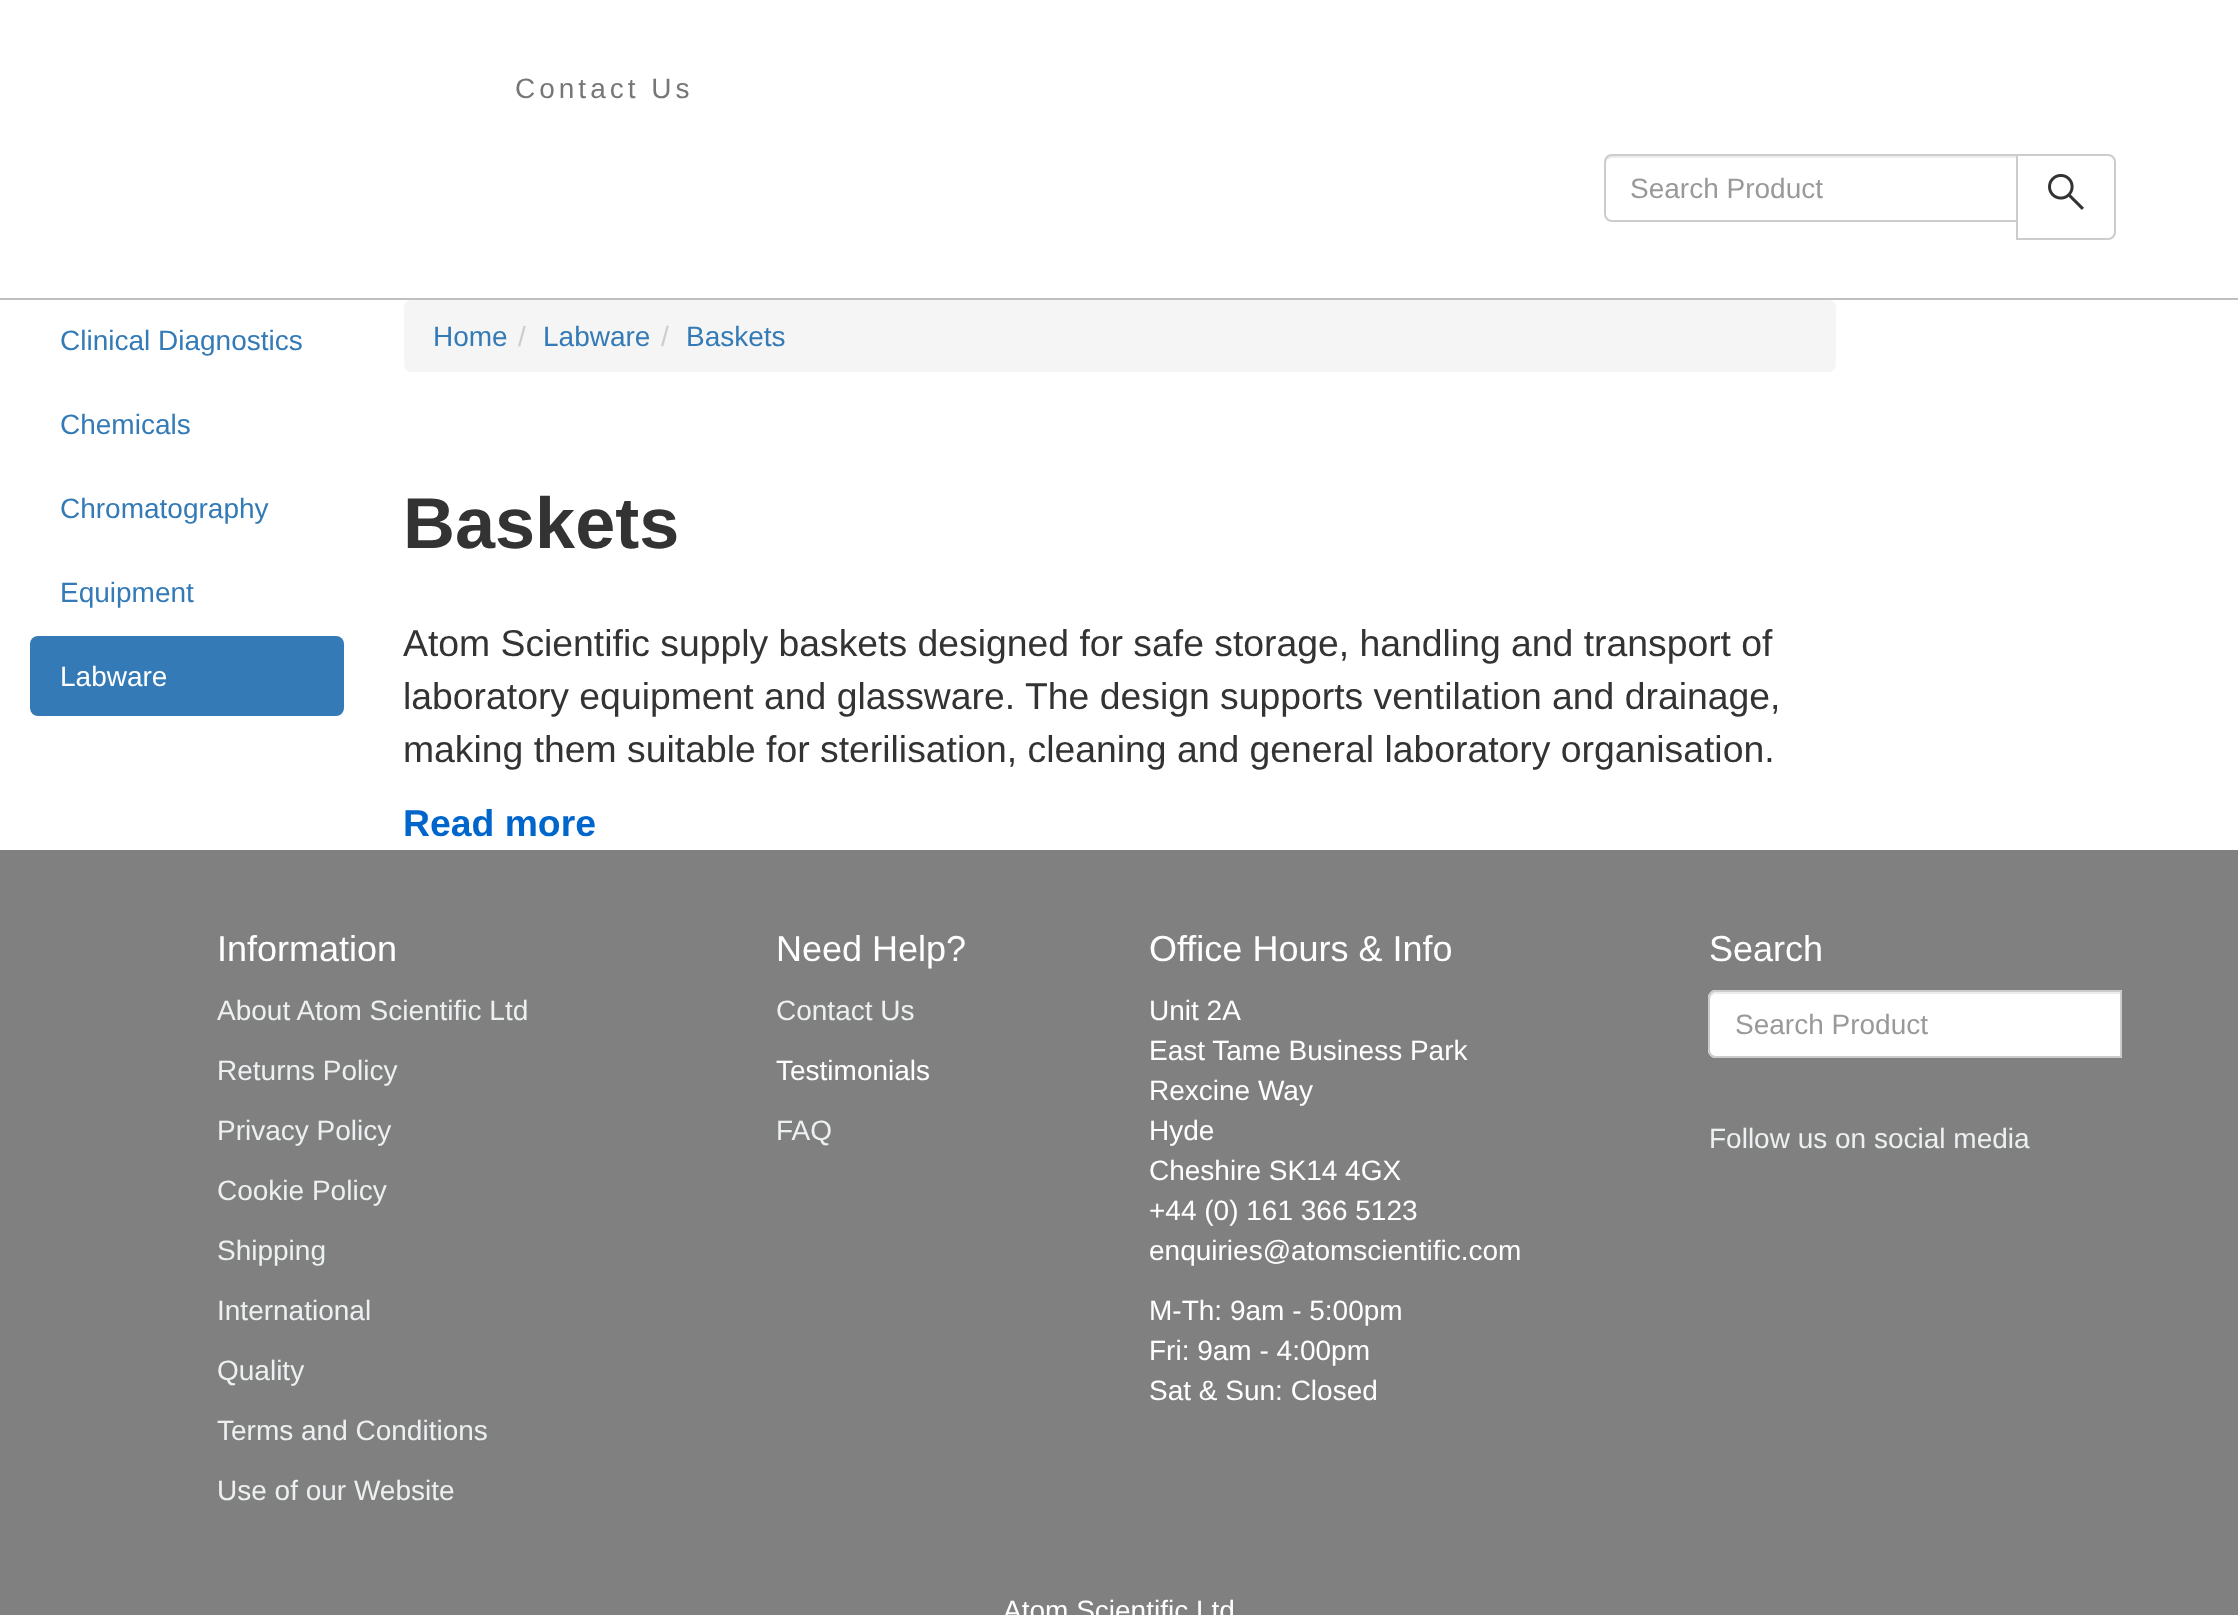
<?xml version="1.0" encoding="UTF-8"?>
<svg xmlns="http://www.w3.org/2000/svg" xmlns:xlink="http://www.w3.org/1999/xlink" width="2238" height="1615">
  <rect width="100%" height="100%" fill="#ffffff" />
  <rect y="298" width="2238" height="2" fill="#c0c0c0" />
  <path d="M 1612 158 h 404 v -2 h -404 c -3 0 -6 3 -6 6 v 2 c 0 -3 3 -6 6 -6 z" fill="#ececec" />
  <path d="M 1612 155 h 405 v 66 h -405 c -4 0 -7 -3 -7 -7 v -52 c 0 -4 3 -7 7 -7 z" fill="none" stroke="#cccccc" stroke-width="2" />
  <path d="M 2017 155 h 91 c 4 0 7 3 7 7 v 70 c 0 4 -3 7 -7 7 h -91 z" fill="#ffffff" stroke="#cccccc" stroke-width="2" />
  <image x="2048" y="173" width="36" height="37" xlink:href="image1.png" />
  <rect x="30" y="636" width="314" height="80" rx="8" fill="#337ab7" />
  <rect x="404" y="300" width="1432" height="72" rx="8" fill="#f5f5f5" />
  <rect y="850" width="2238" height="765" fill="#808080" />
  <path d="M 1716 990 h 406 v 68 h -406 c -4.5 0 -8 -3.5 -8 -8 v -52 c 0 -4.5 3.5 -8 8 -8 z" fill="#ffffff" />
  <path d="M 1716 994 h 404 v -2 h -404 c -3 0 -6 3 -6 6 v 2 c 0 -3 3 -6 6 -6 z" fill="#ececec" />
  <path d="M 1716 991 h 405 v 66 h -405 c -4 0 -7 -3 -7 -7 v -52 c 0 -4 3 -7 7 -7 z" fill="none" stroke="#cccccc" stroke-width="2" />
  <text x="515" y="98" style="font-family: Liberation Sans; font-size: 28px; letter-spacing: 4px; fill: #777777">Contact Us</text>
  <text x="1630" y="198" style="font-family: Liberation Sans; font-size: 28px; fill: #999999">Search Product</text>
  <text x="60" y="350" style="font-family: Liberation Sans; font-size: 28px; fill: #337ab7">Clinical Diagnostics</text>
  <text x="60" y="434" style="font-family: Liberation Sans; font-size: 28px; fill: #337ab7">Chemicals</text>
  <text x="60" y="518" style="font-family: Liberation Sans; font-size: 28px; fill: #337ab7">Chromatography</text>
  <text x="60" y="602" style="font-family: Liberation Sans; font-size: 28px; fill: #337ab7">Equipment</text>
  <text x="60" y="686" style="font-family: Liberation Sans; font-size: 28px; fill: #ffffff">Labware</text>
  <text x="433" y="346" style="font-family: Liberation Sans; font-size: 28px; fill: #337ab7">Home</text>
  <text x="518" y="346" style="font-family: Liberation Sans; font-size: 28px; fill: #cccccc">/</text>
  <text x="543" y="346" style="font-family: Liberation Sans; font-size: 28px; fill: #337ab7">Labware</text>
  <text x="661" y="346" style="font-family: Liberation Sans; font-size: 28px; fill: #cccccc">/</text>
  <text x="686" y="346" style="font-family: Liberation Sans; font-size: 28px; fill: #337ab7">Baskets</text>
  <text x="403" y="548" style="font-family: Liberation Sans; font-size: 72px; font-weight: bold; fill: #333333">Baskets</text>
  <text x="403" y="656" style="font-family: Liberation Sans; font-size: 37.35px; fill: #333333">Atom Scientific supply baskets designed for safe storage, handling and transport of</text>
  <text x="403" y="709" style="font-family: Liberation Sans; font-size: 37.35px; fill: #333333">laboratory equipment and glassware.</text>
  <text x="1025" y="709" style="font-family: Liberation Sans; font-size: 37.35px; fill: #333333">The design supports ventilation and drainage,</text>
  <text x="403" y="762" style="font-family: Liberation Sans; font-size: 37.35px; fill: #333333">making them suitable for sterilisation, cleaning and general laboratory organisation.</text>
  <text x="403" y="836" style="font-family: Liberation Sans; font-size: 37.35px; font-weight: bold; fill: #0066cc">Read more</text>
  <text x="217" y="961" style="font-family: Liberation Sans; font-size: 36px; fill: #ffffff">Information</text>
  <text x="217" y="1020" style="font-family: Liberation Sans; font-size: 28px; fill: #ecf0f1">About Atom Scientific Ltd</text>
  <text x="217" y="1080" style="font-family: Liberation Sans; font-size: 28px; fill: #ecf0f1">Returns Policy</text>
  <text x="217" y="1140" style="font-family: Liberation Sans; font-size: 28px; fill: #ecf0f1">Privacy Policy</text>
  <text x="217" y="1200" style="font-family: Liberation Sans; font-size: 28px; fill: #ecf0f1">Cookie Policy</text>
  <text x="217" y="1260" style="font-family: Liberation Sans; font-size: 28px; fill: #ecf0f1">Shipping</text>
  <text x="217" y="1320" style="font-family: Liberation Sans; font-size: 28px; fill: #ecf0f1">International</text>
  <text x="217" y="1380" style="font-family: Liberation Sans; font-size: 28px; fill: #ecf0f1">Quality</text>
  <text x="217" y="1440" style="font-family: Liberation Sans; font-size: 28px; fill: #ecf0f1">Terms and Conditions</text>
  <text x="217" y="1500" style="font-family: Liberation Sans; font-size: 28px; fill: #ecf0f1">Use of our Website</text>
  <text x="776" y="961" style="font-family: Liberation Sans; font-size: 36px; fill: #ffffff">Need Help?</text>
  <text x="776" y="1020" style="font-family: Liberation Sans; font-size: 28px; fill: #ecf0f1">Contact Us</text>
  <text x="776" y="1080" style="font-family: Liberation Sans; font-size: 28px; fill: #ffffff">Testimonials</text>
  <text x="776" y="1140" style="font-family: Liberation Sans; font-size: 28px; fill: #ecf0f1">FAQ</text>
  <text x="1149" y="961" style="font-family: Liberation Sans; font-size: 36px; fill: #ffffff">Office Hours &amp; Info</text>
  <text x="1149" y="1020" style="font-family: Liberation Sans; font-size: 28px; fill: #ffffff">Unit 2A</text>
  <text x="1149" y="1060" style="font-family: Liberation Sans; font-size: 28px; fill: #ffffff">East Tame Business Park</text>
  <text x="1149" y="1100" style="font-family: Liberation Sans; font-size: 28px; fill: #ffffff">Rexcine Way</text>
  <text x="1149" y="1140" style="font-family: Liberation Sans; font-size: 28px; fill: #ffffff">Hyde</text>
  <text x="1149" y="1180" style="font-family: Liberation Sans; font-size: 28px; fill: #ffffff">Cheshire SK14 4GX</text>
  <text x="1149" y="1220" style="font-family: Liberation Sans; font-size: 28px; fill: #ffffff">+44 (0) 161 366 5123</text>
  <text x="1149" y="1260" style="font-family: Liberation Sans; font-size: 28px; fill: #ffffff">enquiries@atomscientific.com</text>
  <text x="1149" y="1320" style="font-family: Liberation Sans; font-size: 28px; fill: #ffffff">M-Th: 9am - 5:00pm</text>
  <text x="1149" y="1360" style="font-family: Liberation Sans; font-size: 28px; fill: #ffffff">Fri: 9am - 4:00pm</text>
  <text x="1149" y="1400" style="font-family: Liberation Sans; font-size: 28px; fill: #ffffff">Sat &amp; Sun: Closed</text>
  <text x="1709" y="961" style="font-family: Liberation Sans; font-size: 36px; fill: #ffffff">Search</text>
  <text x="1735" y="1034" style="font-family: Liberation Sans; font-size: 28px; fill: #999999">Search Product</text>
  <text x="1709" y="1148" style="font-family: Liberation Sans; font-size: 28px; fill: #ecf0f1">Follow us on social media</text>
  <text x="1003" y="1620" style="font-family: Liberation Sans; font-size: 28px; fill: #ffffff">Atom Scientific Ltd</text>
</svg>
